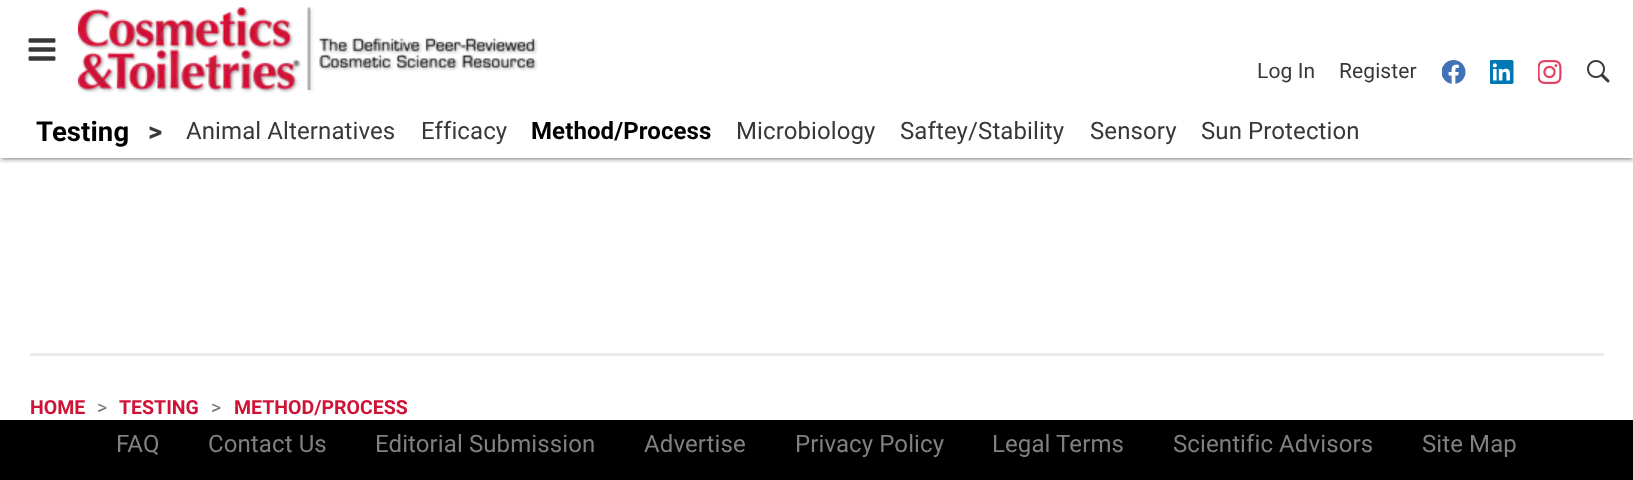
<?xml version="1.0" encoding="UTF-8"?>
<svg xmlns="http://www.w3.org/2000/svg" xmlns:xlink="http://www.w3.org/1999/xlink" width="1633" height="480">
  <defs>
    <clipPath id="clip1"><rect x="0" y="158" width="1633" height="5" /></clipPath>
    <clipPath id="clip2"><rect x="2" y="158" width="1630" height="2" /></clipPath>
  </defs>
  <rect width="100%" height="100%" fill="#ffffff" />
  <g clip-path="url(#clip1)">
    <rect y="2" width="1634" height="157" fill="#000000" fill-opacity="0.12" filter="blur(4px)" />
  </g>
  <g clip-path="url(#clip2)">
    <rect x="3" y="8" width="1628" height="151" fill="#000000" fill-opacity="0.2" filter="blur(1px)" />
  </g>
  <g clip-path="url(#clip1)">
    <rect y="3" width="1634" height="158" fill="#000000" fill-opacity="0.14" filter="blur(1.5px)" />
  </g>
  <image x="28" y="38" width="28" height="23" xlink:href="image1.png" />
  <image x="77" y="7" width="461" height="86" xlink:href="image2.png" />
  <image x="1442" y="60" width="24" height="24" xlink:href="image3.png" />
  <image x="1490" y="60" width="24" height="24" xlink:href="image4.png" />
  <image x="1538" y="60" width="24" height="24" xlink:href="image5.png" />
  <image x="1587" y="60" width="23" height="23" xlink:href="image6.png" />
  <rect y="157" width="1633" height="1" fill="#ffffff" />
  <rect x="30" y="353" width="1574" height="3" fill="#ebebeb" />
  <rect y="420" width="1633" height="60" fill="#000000" />
  <text x="1257" y="78" style="font-family: Roboto; font-size: 21px; letter-spacing: 0.1px; fill: #383838">Log In</text>
  <text x="1339" y="78" style="font-family: Roboto; font-size: 21px; letter-spacing: 0.1px; fill: #383838">Register</text>
  <text x="36" y="141" style="font-family: Roboto; font-size: 27.5px; font-weight: bold; letter-spacing: 0.1px; fill: #000000">Testing</text>
  <text x="148" y="141" style="font-family: Roboto; font-size: 27.5px; font-weight: bold; letter-spacing: 0.1px; fill: #383838">&gt;</text>
  <text x="186" y="139" style="font-family: Roboto; font-size: 24px; letter-spacing: 0.1px; fill: #383838">Animal Alternatives</text>
  <text x="421" y="139" style="font-family: Roboto; font-size: 24px; letter-spacing: 0.1px; fill: #383838">Efficacy</text>
  <text x="531" y="139" style="font-family: Roboto; font-size: 24px; font-weight: bold; letter-spacing: 0.1px; fill: #000000">Method/Process</text>
  <text x="736" y="139" style="font-family: Roboto; font-size: 24px; letter-spacing: 0.1px; fill: #383838">Microbiology</text>
  <text x="900" y="139" style="font-family: Roboto; font-size: 24px; letter-spacing: 0.1px; fill: #383838">Saftey/Stability</text>
  <text x="1090" y="139" style="font-family: Roboto; font-size: 24px; letter-spacing: 0.1px; fill: #383838">Sensory</text>
  <text x="1201" y="139" style="font-family: Roboto; font-size: 24px; letter-spacing: 0.1px; fill: #383838">Sun Protection</text>
  <text x="30" y="414" style="font-family: Roboto; font-size: 19.5px; font-weight: bold; fill: #cf1337">HOME</text>
  <text x="97" y="414" style="font-family: Roboto; font-size: 19.5px; fill: #6c757d">&gt;</text>
  <text x="119" y="414" style="font-family: Roboto; font-size: 19.5px; font-weight: bold; fill: #cf1337">TESTING</text>
  <text x="211" y="414" style="font-family: Roboto; font-size: 19.5px; fill: #6c757d">&gt;</text>
  <text x="234" y="414" style="font-family: Roboto; font-size: 19.5px; font-weight: bold; fill: #cf1337">METHOD/PROCESS</text>
  <text x="116" y="452" style="font-family: Roboto; font-size: 24px; letter-spacing: 0.1px; fill: #808080">FAQ</text>
  <text x="208" y="452" style="font-family: Roboto; font-size: 24px; letter-spacing: 0.1px; fill: #808080">Contact Us</text>
  <text x="375" y="452" style="font-family: Roboto; font-size: 24px; letter-spacing: 0.1px; fill: #808080">Editorial Submission</text>
  <text x="644" y="452" style="font-family: Roboto; font-size: 24px; letter-spacing: 0.1px; fill: #808080">Advertise</text>
  <text x="795" y="452" style="font-family: Roboto; font-size: 24px; letter-spacing: 0.1px; fill: #808080">Privacy Policy</text>
  <text x="992" y="452" style="font-family: Roboto; font-size: 24px; letter-spacing: 0.1px; fill: #808080">Legal Terms</text>
  <text x="1173" y="452" style="font-family: Roboto; font-size: 24px; letter-spacing: 0.1px; fill: #808080">Scientific Advisors</text>
  <text x="1422" y="452" style="font-family: Roboto; font-size: 24px; letter-spacing: 0.1px; fill: #808080">Site Map</text>
</svg>
